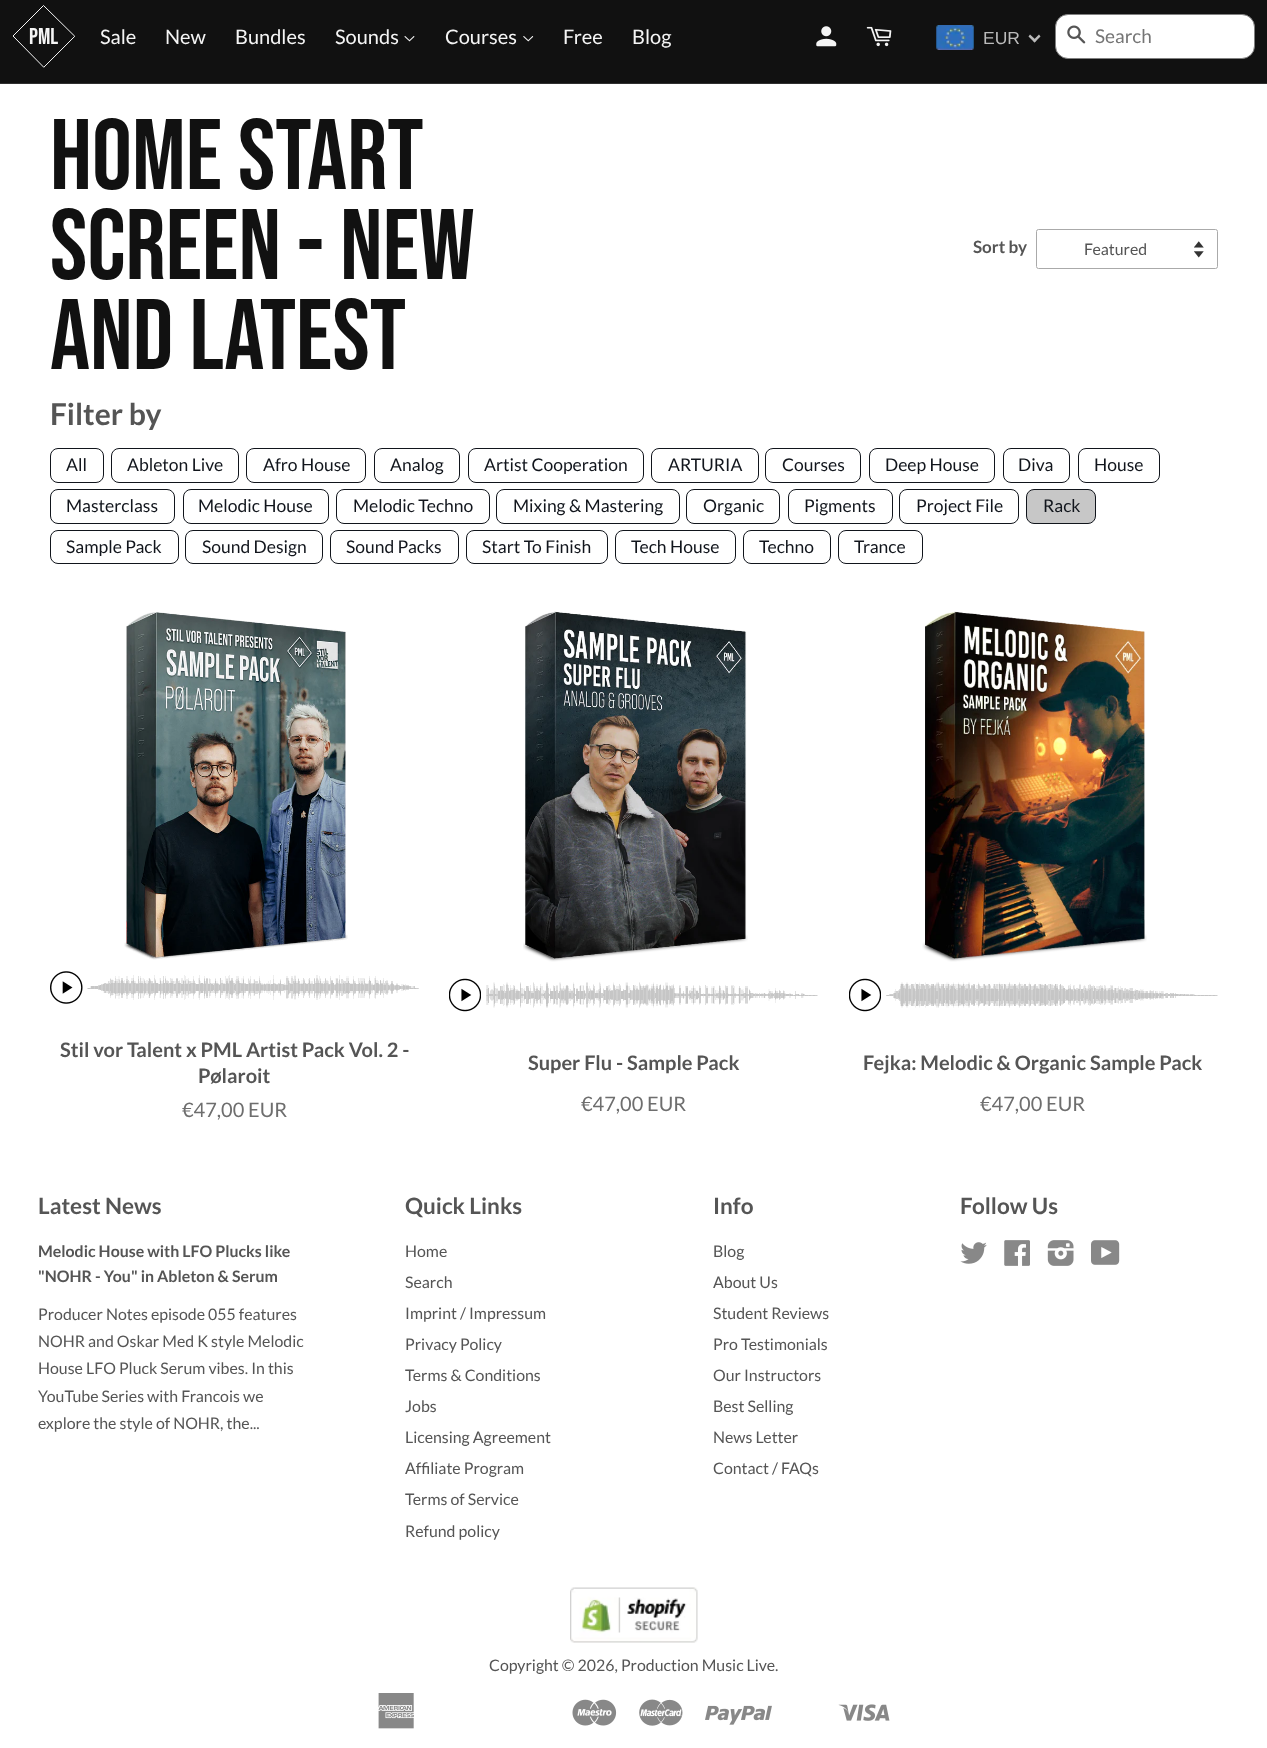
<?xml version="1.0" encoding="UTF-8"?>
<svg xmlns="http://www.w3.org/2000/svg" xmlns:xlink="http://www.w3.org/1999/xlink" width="1267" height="1748">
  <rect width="100%" height="100%" fill="#ffffff" />
  <rect width="1267" height="83" fill="#111111" />
  <rect y="83" width="1267" height="1" fill="#303030" />
  <path d="M 74.5 36 l -31 -30.5 l -30.5 30.5 l 30.5 31 z" fill="none" stroke="#f5f5f5" stroke-linecap="round" stroke-linejoin="round" />
  <image x="404" y="36" width="11" height="6" xlink:href="image1.png" />
  <image x="523" y="36" width="11" height="6" xlink:href="image2.png" />
  <image x="816" y="26" width="21" height="21" xlink:href="image3.png" />
  <image x="866" y="26" width="26" height="21" xlink:href="image4.png" />
  <image x="936" y="25" width="38" height="25" xlink:href="image5.png" />
  <path d="M 1039 34.5 l 1.5 2 l -6 6 l -1.5 -2 z" fill="#bbbbbb" />
  <path d="M 1030 34.5 l 6.5 6 l -2 2 l -6 -6 z" fill="#bbbbbb" />
  <rect x="1055.5" y="14.5" width="199" height="44" rx="12.5" fill="#ffffff" stroke="#808080" />
  <image x="1067" y="25" width="19" height="19" xlink:href="image6.png" />
  <image x="1194" y="241" width="10" height="17" xlink:href="image7.png" />
  <rect x="1036.5" y="229.5" width="181" height="39" rx="2" fill="none" stroke="#aaaaaa" />
  <rect x="50.5" y="448.5" width="53" height="34" rx="7.5" fill="none" stroke="#11151c" />
  <rect x="111.5" y="448.5" width="127" height="34" rx="7.5" fill="none" stroke="#11151c" />
  <rect x="246.5" y="448.5" width="119" height="34" rx="7.5" fill="none" stroke="#11151c" />
  <rect x="374.5" y="448.5" width="85" height="34" rx="7.5" fill="none" stroke="#11151c" />
  <rect x="468.5" y="448.5" width="175" height="34" rx="7.5" fill="none" stroke="#11151c" />
  <rect x="651.5" y="448.5" width="107" height="34" rx="7.5" fill="none" stroke="#11151c" />
  <rect x="765.5" y="448.5" width="95" height="34" rx="7.5" fill="none" stroke="#11151c" />
  <rect x="869.5" y="448.5" width="125" height="34" rx="7.5" fill="none" stroke="#11151c" />
  <rect x="1003.5" y="448.5" width="66" height="34" rx="7.5" fill="none" stroke="#11151c" />
  <rect x="1078.5" y="448.5" width="81" height="34" rx="7.5" fill="none" stroke="#11151c" />
  <rect x="50.5" y="489.5" width="124" height="34" rx="7.5" fill="none" stroke="#11151c" />
  <rect x="183.5" y="489.5" width="145" height="34" rx="7.5" fill="none" stroke="#11151c" />
  <rect x="336.5" y="489.5" width="153" height="34" rx="7.5" fill="none" stroke="#11151c" />
  <rect x="496.5" y="489.5" width="183" height="34" rx="7.5" fill="none" stroke="#11151c" />
  <rect x="686.5" y="489.5" width="93" height="34" rx="7.5" fill="none" stroke="#11151c" />
  <rect x="788.5" y="489.5" width="104" height="34" rx="7.5" fill="none" stroke="#11151c" />
  <rect x="899.5" y="489.5" width="119" height="34" rx="7.5" fill="none" stroke="#11151c" />
  <rect x="1026.5" y="489.5" width="69" height="34" rx="7.5" fill="#c7c7c7" stroke="#11151c" />
  <rect x="50.5" y="530.5" width="128" height="33" rx="7.5" fill="none" stroke="#11151c" />
  <rect x="185.5" y="530.5" width="137" height="33" rx="7.5" fill="none" stroke="#11151c" />
  <rect x="330.5" y="530.5" width="128" height="33" rx="7.5" fill="none" stroke="#11151c" />
  <rect x="466.5" y="530.5" width="141" height="33" rx="7.5" fill="none" stroke="#11151c" />
  <rect x="615.5" y="530.5" width="120" height="33" rx="7.5" fill="none" stroke="#11151c" />
  <rect x="743.5" y="530.5" width="87" height="33" rx="7.5" fill="none" stroke="#11151c" />
  <rect x="838.5" y="530.5" width="84" height="33" rx="7.5" fill="none" stroke="#11151c" />
  <image x="124" y="612" width="224" height="348" xlink:href="image8.png" />
  <image x="50" y="971" width="33" height="33" xlink:href="image9.png" />
  <image x="87" y="975" width="332" height="25" xlink:href="image10.png" />
  <image x="523" y="611" width="225" height="351" xlink:href="image11.png" />
  <image x="449" y="978" width="32" height="34" xlink:href="image12.png" />
  <image x="486" y="982" width="332" height="26" xlink:href="image13.png" />
  <image x="922" y="611" width="225" height="351" xlink:href="image14.png" />
  <image x="849" y="978" width="32" height="34" xlink:href="image12.png" />
  <image x="886" y="982" width="332" height="26" xlink:href="image15.png" />
  <image x="960" y="1242" width="27" height="22" xlink:href="image16.png" />
  <image x="1004" y="1240" width="26" height="26" xlink:href="image17.png" />
  <image x="1047" y="1240" width="27" height="26" xlink:href="image18.png" />
  <image x="1091" y="1240" width="29" height="25" xlink:href="image19.png" />
  <image x="570" y="1587" width="128" height="56" xlink:href="image20.png" />
  <image x="378" y="1693" width="36" height="36" xlink:href="image21.png" />
  <image x="572" y="1699" width="45" height="27" xlink:href="image22.png" />
  <image x="639" y="1699" width="44" height="27" xlink:href="image23.png" />
  <image x="705" y="1705" width="67" height="20" xlink:href="image24.png" />
  <image x="838" y="1704" width="52" height="17" xlink:href="image25.png" />
  <text x="29" y="44" style="font-family: Bebas Neue; font-size: 23px; fill: #f5f5f5">PML</text>
  <text x="100" y="44" style="font-family: Lato; font-size: 20px; fill: #f5f5f5">Sale</text>
  <text x="165" y="44" style="font-family: Lato; font-size: 20px; fill: #f5f5f5">New</text>
  <text x="235" y="44" style="font-family: Lato; font-size: 20px; fill: #f5f5f5">Bundles</text>
  <text x="335" y="44" style="font-family: Lato; font-size: 20px; fill: #f5f5f5">Sounds</text>
  <text x="445" y="44" style="font-family: Lato; font-size: 20px; fill: #f5f5f5">Courses</text>
  <text x="563" y="44" style="font-family: Lato; font-size: 20px; fill: #f5f5f5">Free</text>
  <text x="632" y="44" style="font-family: Lato; font-size: 20px; fill: #f5f5f5">Blog</text>
  <text x="983" y="44" style="font-family: Liberation Sans; font-size: 17.5px; fill: #bbbbbb">EUR</text>
  <text x="1095" y="43" style="font-family: Lato; font-size: 19px; fill: #757575">Search</text>
  <text x="50" y="189" style="font-family: Bebas Neue; font-size: 100px; fill: #111111">Home Start</text>
  <text x="50" y="279" style="font-family: Bebas Neue; font-size: 100px; fill: #111111">Screen - New</text>
  <text x="50" y="369" style="font-family: Bebas Neue; font-size: 100px; fill: #111111">and Latest</text>
  <text x="973" y="253" style="font-family: Lato; font-size: 17px; font-weight: bold; fill: #555555">Sort by</text>
  <text x="1084" y="255" style="font-family: Lato; font-size: 15.9px; fill: #555555">Featured</text>
  <text x="50" y="425" style="font-family: Lato; font-size: 30px; font-weight: bold; fill: #555555">Filter by</text>
  <text x="66" y="471" style="font-family: Lato; font-size: 17.5px; fill: #11151c">All</text>
  <text x="127" y="471" style="font-family: Lato; font-size: 17.5px; fill: #11151c">Ableton Live</text>
  <text x="263" y="471" style="font-family: Lato; font-size: 17.5px; fill: #11151c">Afro House</text>
  <text x="390" y="471" style="font-family: Lato; font-size: 17.5px; fill: #11151c">Analog</text>
  <text x="484" y="471" style="font-family: Lato; font-size: 17.5px; fill: #11151c">Artist Cooperation</text>
  <text x="668" y="471" style="font-family: Lato; font-size: 17.5px; fill: #11151c">ARTURIA</text>
  <text x="782" y="471" style="font-family: Lato; font-size: 17.5px; fill: #11151c">Courses</text>
  <text x="885" y="471" style="font-family: Lato; font-size: 17.5px; fill: #11151c">Deep House</text>
  <text x="1018" y="471" style="font-family: Lato; font-size: 17.5px; fill: #11151c">Diva</text>
  <text x="1094" y="471" style="font-family: Lato; font-size: 17.5px; fill: #11151c">House</text>
  <text x="66" y="512" style="font-family: Lato; font-size: 17.5px; fill: #11151c">Masterclass</text>
  <text x="198" y="512" style="font-family: Lato; font-size: 17.5px; fill: #11151c">Melodic House</text>
  <text x="353" y="512" style="font-family: Lato; font-size: 17.5px; fill: #11151c">Melodic Techno</text>
  <text x="513" y="512" style="font-family: Lato; font-size: 17.5px; fill: #11151c">Mixing &amp; Mastering</text>
  <text x="703" y="512" style="font-family: Lato; font-size: 17.5px; fill: #11151c">Organic</text>
  <text x="804" y="512" style="font-family: Lato; font-size: 17.5px; fill: #11151c">Pigments</text>
  <text x="916" y="512" style="font-family: Lato; font-size: 17.5px; fill: #11151c">Project File</text>
  <text x="1043" y="512" style="font-family: Lato; font-size: 17.5px; fill: #11151c">Rack</text>
  <text x="66" y="553" style="font-family: Lato; font-size: 17.5px; fill: #11151c">Sample Pack</text>
  <text x="202" y="553" style="font-family: Lato; font-size: 17.5px; fill: #11151c">Sound Design</text>
  <text x="346" y="553" style="font-family: Lato; font-size: 17.5px; fill: #11151c">Sound Packs</text>
  <text x="482" y="553" style="font-family: Lato; font-size: 17.5px; fill: #11151c">Start To Finish</text>
  <text x="631" y="553" style="font-family: Lato; font-size: 17.5px; fill: #11151c">Tech House</text>
  <text x="759" y="553" style="font-family: Lato; font-size: 17.5px; fill: #11151c">Techno</text>
  <text x="854" y="553" style="font-family: Lato; font-size: 17.5px; fill: #11151c">Trance</text>
  <text x="60" y="1057" style="font-family: Lato; font-size: 20px; font-weight: bold; fill: #555555">Stil vor Talent x PML Artist Pack Vol. 2 -</text>
  <text x="198" y="1083" style="font-family: Lato; font-size: 20px; font-weight: bold; fill: #555555">Pølaroit</text>
  <text x="182" y="1117" style="font-family: Lato; font-size: 20px; fill: #6e6e6e">€47,00 EUR</text>
  <text x="528" y="1070" style="font-family: Lato; font-size: 20px; font-weight: bold; fill: #555555">Super Flu - Sample Pack</text>
  <text x="581" y="1111" style="font-family: Lato; font-size: 20px; fill: #6e6e6e">€47,00 EUR</text>
  <text x="863" y="1070" style="font-family: Lato; font-size: 20px; font-weight: bold; fill: #555555">Fejka: Melodic &amp; Organic Sample Pack</text>
  <text x="980" y="1111" style="font-family: Lato; font-size: 20px; fill: #6e6e6e">€47,00 EUR</text>
  <text x="38" y="1214" style="font-family: Lato; font-size: 22.5px; font-weight: bold; fill: #555555">Latest News</text>
  <text x="38" y="1257" style="font-family: Lato; font-size: 15.9px; font-weight: bold; fill: #555555">Melodic House with LFO Plucks like</text>
  <text x="38" y="1282" style="font-family: Lato; font-size: 15.9px; font-weight: bold; fill: #555555">"NOHR - You" in Ableton &amp; Serum</text>
  <text x="38" y="1320" style="font-family: Lato; font-size: 15.9px; fill: #555555">Producer Notes episode 055 features</text>
  <text x="38" y="1347" style="font-family: Lato; font-size: 15.9px; fill: #555555">NOHR and Oskar Med K style Melodic</text>
  <text x="38" y="1374" style="font-family: Lato; font-size: 15.9px; fill: #555555">House LFO Pluck Serum vibes. In this</text>
  <text x="38" y="1402" style="font-family: Lato; font-size: 15.9px; fill: #555555">YouTube Series with Francois we</text>
  <text x="38" y="1429" style="font-family: Lato; font-size: 15.9px; fill: #555555">explore the style of NOHR, the...</text>
  <text x="405" y="1214" style="font-family: Lato; font-size: 22.5px; font-weight: bold; fill: #555555">Quick Links</text>
  <text x="405" y="1257" style="font-family: Lato; font-size: 15.9px; fill: #555555">Home</text>
  <text x="405" y="1288" style="font-family: Lato; font-size: 15.9px; fill: #555555">Search</text>
  <text x="405" y="1319" style="font-family: Lato; font-size: 15.9px; fill: #555555">Imprint / Impressum</text>
  <text x="405" y="1350" style="font-family: Lato; font-size: 15.9px; fill: #555555">Privacy Policy</text>
  <text x="405" y="1381" style="font-family: Lato; font-size: 15.9px; fill: #555555">Terms &amp; Conditions</text>
  <text x="405" y="1412" style="font-family: Lato; font-size: 15.9px; fill: #555555">Jobs</text>
  <text x="405" y="1443" style="font-family: Lato; font-size: 15.9px; fill: #555555">Licensing Agreement</text>
  <text x="405" y="1474" style="font-family: Lato; font-size: 15.9px; fill: #555555">Affiliate Program</text>
  <text x="405" y="1505" style="font-family: Lato; font-size: 15.9px; fill: #555555">Terms of Service</text>
  <text x="405" y="1537" style="font-family: Lato; font-size: 15.9px; fill: #555555">Refund policy</text>
  <text x="713" y="1214" style="font-family: Lato; font-size: 22.5px; font-weight: bold; fill: #555555">Info</text>
  <text x="713" y="1257" style="font-family: Lato; font-size: 15.9px; fill: #555555">Blog</text>
  <text x="713" y="1288" style="font-family: Lato; font-size: 15.9px; fill: #555555">About Us</text>
  <text x="713" y="1319" style="font-family: Lato; font-size: 15.9px; fill: #555555">Student Reviews</text>
  <text x="713" y="1350" style="font-family: Lato; font-size: 15.9px; fill: #555555">Pro Testimonials</text>
  <text x="713" y="1381" style="font-family: Lato; font-size: 15.9px; fill: #555555">Our Instructors</text>
  <text x="713" y="1412" style="font-family: Lato; font-size: 15.9px; fill: #555555">Best Selling</text>
  <text x="713" y="1443" style="font-family: Lato; font-size: 15.9px; fill: #555555">News Letter</text>
  <text x="713" y="1474" style="font-family: Lato; font-size: 15.9px; fill: #555555">Contact / FAQs</text>
  <text x="960" y="1214" style="font-family: Lato; font-size: 22.5px; font-weight: bold; fill: #555555">Follow Us</text>
  <text x="489" y="1671" style="font-family: Lato; font-size: 15.9px; fill: #555555">Copyright © 2026, Production Music Live.</text>
</svg>
